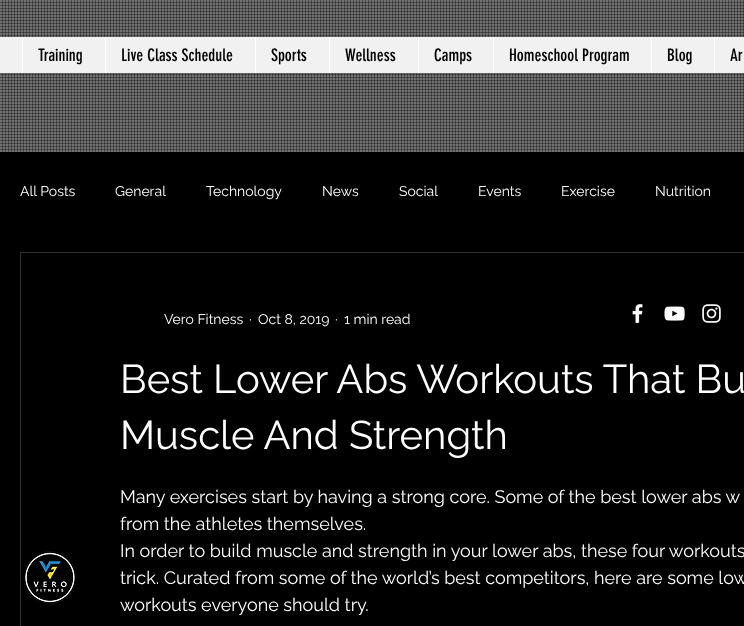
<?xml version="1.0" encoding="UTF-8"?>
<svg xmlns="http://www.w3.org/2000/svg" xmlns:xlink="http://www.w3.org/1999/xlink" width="744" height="626">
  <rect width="100%" height="100%" fill="#717171" />
  <image x="0" y="0" width="744" height="152" xlink:href="image1.png" />
  <rect y="37" width="744" height="36" fill="#f1f1f1" />
  <rect x="22" y="37" width="1" height="36" fill="#ffffff" />
  <rect x="105" y="37" width="1" height="36" fill="#ffffff" />
  <rect x="255" y="37" width="1" height="36" fill="#ffffff" />
  <rect x="329" y="37" width="1" height="36" fill="#ffffff" />
  <rect x="418" y="37" width="1" height="36" fill="#ffffff" />
  <rect x="493" y="37" width="1" height="36" fill="#ffffff" />
  <rect x="651" y="37" width="1" height="36" fill="#ffffff" />
  <rect x="714" y="37" width="1" height="36" fill="#ffffff" />
  <rect y="152" width="744" height="474" fill="#000000" />
  <rect x="20.5" y="252.5" width="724" height="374" fill="none" stroke="#303030" />
  <image x="632" y="304" width="11" height="19" xlink:href="image2.png" />
  <image x="664" y="306" width="21" height="15" xlink:href="image3.png" />
  <image x="702" y="304" width="19" height="19" xlink:href="image4.png" />
  <image x="23" y="551" width="54" height="53" xlink:href="image5.png" />
  <text x="38" y="61" style="font-family: 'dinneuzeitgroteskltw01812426'; font-size: 17px; fill: #000000">Training</text>
  <text x="121" y="61" style="font-family: 'dinneuzeitgroteskltw01812426'; font-size: 17px; fill: #000000">Live Class Schedule</text>
  <text x="271" y="61" style="font-family: 'dinneuzeitgroteskltw01812426'; font-size: 17px; fill: #000000">Sports</text>
  <text x="345" y="61" style="font-family: 'dinneuzeitgroteskltw01812426'; font-size: 17px; fill: #000000">Wellness</text>
  <text x="434" y="61" style="font-family: 'dinneuzeitgroteskltw01812426'; font-size: 17px; fill: #000000">Camps</text>
  <text x="509" y="61" style="font-family: 'dinneuzeitgroteskltw01812426'; font-size: 17px; fill: #000000">Homeschool Program</text>
  <text x="667" y="61" style="font-family: 'dinneuzeitgroteskltw01812426'; font-size: 17px; fill: #000000">Blog</text>
  <text x="730" y="61" style="font-family: 'dinneuzeitgroteskltw01812426'; font-size: 17px; fill: #000000">Ar</text>
  <text x="20" y="196" style="font-family: Raleway; font-size: 14px; fill: #ffffff">All Posts</text>
  <text x="115" y="196" style="font-family: Raleway; font-size: 14px; fill: #ffffff">General</text>
  <text x="206" y="196" style="font-family: Raleway; font-size: 14px; fill: #ffffff">Technology</text>
  <text x="322" y="196" style="font-family: Raleway; font-size: 14px; fill: #ffffff">News</text>
  <text x="399" y="196" style="font-family: Raleway; font-size: 14px; fill: #ffffff">Social</text>
  <text x="478" y="196" style="font-family: Raleway; font-size: 14px; fill: #ffffff">Events</text>
  <text x="561" y="196" style="font-family: Raleway; font-size: 14px; fill: #ffffff">Exercise</text>
  <text x="655" y="196" style="font-family: Raleway; font-size: 14px; fill: #ffffff">Nutrition</text>
  <text x="164" y="324" style="font-family: Raleway; font-size: 14px; fill: #ffffff">Vero Fitness</text>
  <text x="249" y="324" style="font-family: Raleway; font-size: 14px; fill: #ffffff">·</text>
  <text x="258" y="324" style="font-family: Raleway; font-size: 14px; fill: #ffffff">Oct 8, 2019</text>
  <text x="335" y="324" style="font-family: Raleway; font-size: 14px; fill: #ffffff">·</text>
  <text x="344" y="324" style="font-family: Raleway; font-size: 14px; fill: #ffffff">1 min read</text>
  <text x="120" y="393" style="font-family: Raleway; font-size: 40px; fill: #ffffff">Best Lower Abs Workouts That Bu</text>
  <text x="120" y="449" style="font-family: Raleway; font-size: 40px; fill: #ffffff">Muscle And Strength</text>
  <text x="120" y="503" style="font-family: Raleway; font-size: 18px; fill: #ffffff">Many exercises start by having a strong core. Some of the best lower abs w</text>
  <text x="120" y="530" style="font-family: Raleway; font-size: 18px; fill: #ffffff">from the athletes themselves.</text>
  <text x="120" y="557" style="font-family: Raleway; font-size: 18px; fill: #ffffff">In order to build muscle and strength in your lower abs, these four workouts</text>
  <text x="120" y="584" style="font-family: Raleway; font-size: 18px; fill: #ffffff">trick. Curated from some of the world’s best competitors, here are some low</text>
  <text x="120" y="611" style="font-family: Raleway; font-size: 18px; fill: #ffffff">workouts everyone should try.</text>
</svg>
